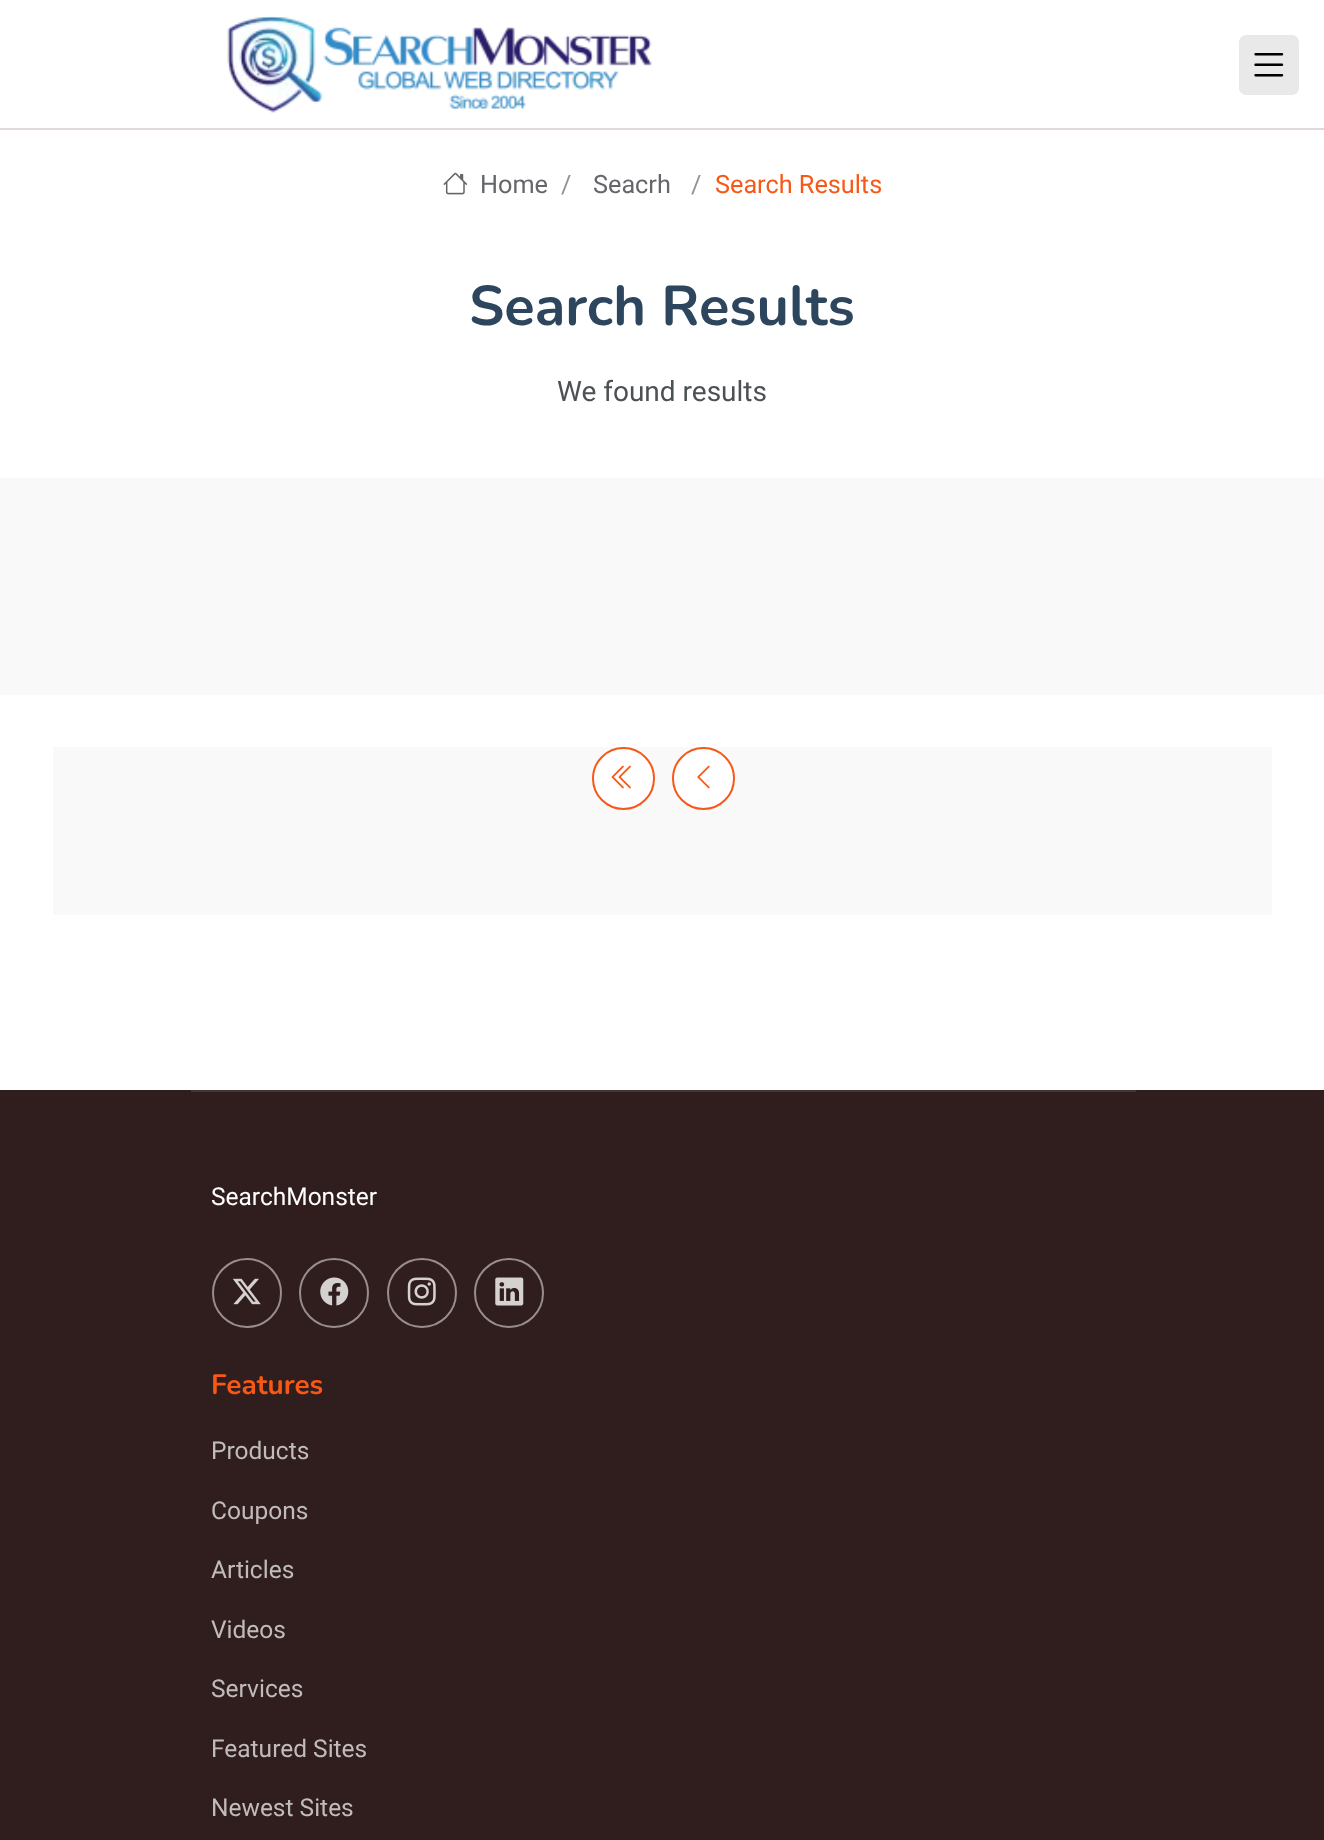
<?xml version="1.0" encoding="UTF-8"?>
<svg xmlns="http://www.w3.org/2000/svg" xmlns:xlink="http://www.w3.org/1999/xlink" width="1324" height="1840">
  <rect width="100%" height="100%" fill="#ffffff" />
  <rect y="128" width="1324" height="2" fill="#e1d9d9" />
  <image x="227" y="15" width="425" height="98" xlink:href="image1.png" />
  <rect x="1239" y="35" width="60" height="60" rx="7" fill="#e9e9ea" />
  <image x="1254" y="53" width="30" height="24" xlink:href="image2.png" />
  <image x="443" y="172" width="25" height="23" xlink:href="image3.png" />
  <rect y="478" width="1324" height="217" fill="#f9f9f9" />
  <rect x="53" y="747" width="1219" height="168" fill="#f9f9f9" />
  <circle cx="623.5" cy="778.5" r="30.5" fill="#ffffff" stroke="#f75815" stroke-width="2" />
  <image x="611" y="765" width="20" height="24" xlink:href="image4.png" />
  <circle cx="703.5" cy="778.5" r="30.5" fill="#ffffff" stroke="#f75815" stroke-width="2" />
  <image x="697" y="765" width="13" height="24" xlink:href="image5.png" />
  <rect y="1090" width="1324" height="750" fill="#301d1d" />
  <rect x="191" y="1090" width="945" height="2" fill="#453434" />
  <circle cx="247" cy="1293" r="34" fill="none" stroke="#988e8e" stroke-width="2" />
  <image x="232" y="1278" width="29" height="27" xlink:href="image6.png" />
  <circle cx="334" cy="1293" r="34" fill="none" stroke="#988e8e" stroke-width="2" />
  <image x="320" y="1277" width="29" height="29" xlink:href="image7.png" />
  <circle cx="422" cy="1293" r="34" fill="none" stroke="#988e8e" stroke-width="2" />
  <image x="407" y="1277" width="29" height="29" xlink:href="image8.png" />
  <circle cx="509" cy="1293" r="34" fill="none" stroke="#988e8e" stroke-width="2" />
  <image x="495" y="1277" width="29" height="29" xlink:href="image9.png" />
  <text x="480" y="193" style="font-family: Roboto; font-size: 25.25px; fill: #646669">Home</text>
  <text x="561" y="193" style="font-family: Roboto; font-size: 25.25px; fill: #909294">/</text>
  <text x="593" y="193" style="font-family: Roboto; font-size: 25.25px; fill: #646669">Seacrh</text>
  <text x="691" y="193" style="font-family: Roboto; font-size: 25.25px; fill: #909294">/</text>
  <text x="715" y="193" style="font-family: Roboto; font-size: 25.25px; fill: #f75815">Search Results</text>
  <text x="469" y="325" style="font-family: Nunito; font-size: 56px; font-weight: bold; fill: #2d465e">Search Results</text>
  <text x="557" y="401" style="font-family: Roboto; font-size: 28px; fill: #4d5154">We found results</text>
  <text x="211" y="1205" style="font-family: Roboto; font-size: 24.5px; fill: #ffffff">SearchMonster</text>
  <text x="211" y="1394" style="font-family: Nunito; font-size: 28px; font-weight: bold; fill: #f75815">Features</text>
  <text x="211" y="1459" style="font-family: Roboto; font-size: 24.5px; fill: #c1bbbb">Products</text>
  <text x="211" y="1519" style="font-family: Roboto; font-size: 24.5px; fill: #c1bbbb">Coupons</text>
  <text x="211" y="1578" style="font-family: Roboto; font-size: 24.5px; fill: #c1bbbb">Articles</text>
  <text x="211" y="1638" style="font-family: Roboto; font-size: 24.5px; fill: #c1bbbb">Videos</text>
  <text x="211" y="1697" style="font-family: Roboto; font-size: 24.5px; fill: #c1bbbb">Services</text>
  <text x="211" y="1757" style="font-family: Roboto; font-size: 24.5px; fill: #c1bbbb">Featured Sites</text>
  <text x="211" y="1816" style="font-family: Roboto; font-size: 24.5px; fill: #c1bbbb">Newest Sites</text>
</svg>
